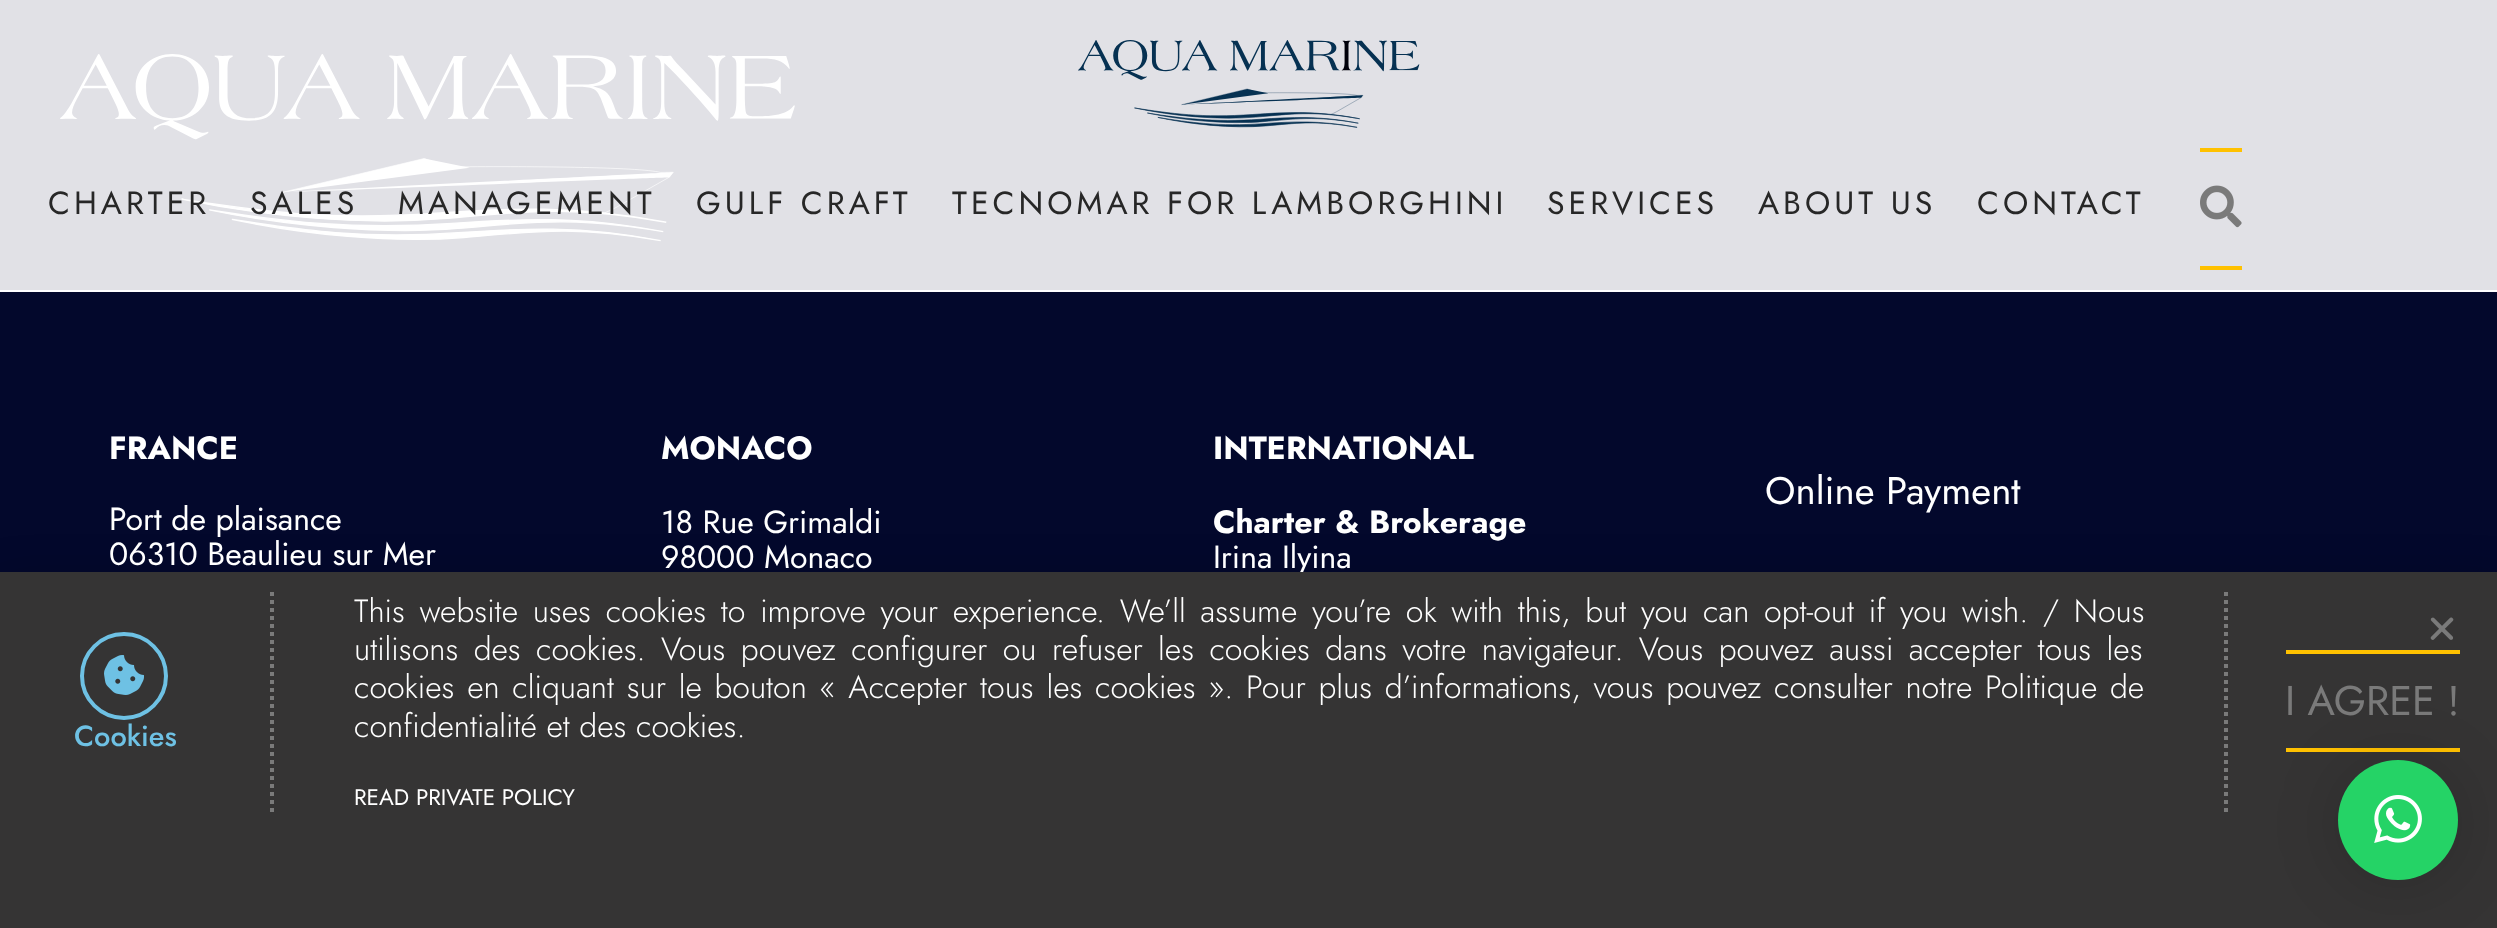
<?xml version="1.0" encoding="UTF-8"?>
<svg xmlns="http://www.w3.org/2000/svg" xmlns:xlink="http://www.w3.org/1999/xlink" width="2497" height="928">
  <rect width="100%" height="100%" fill="#03082c" />
  <rect y="290" width="2497" height="2" fill="#ffffff" />
  <rect width="2497" height="290" fill="#e1e1e6" />
  <image x="1078" y="40" width="342" height="88" xlink:href="image1.png" />
  <rect x="2200" y="148" width="42" height="4" fill="#ffc100" />
  <rect x="2200" y="266" width="42" height="4" fill="#ffc100" />
  <image x="2200" y="185" width="42" height="43" xlink:href="image2.png" />
  <image x="60" y="54" width="735" height="188" xlink:href="image3.png" />
  <rect x="-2" y="582" width="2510" height="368" fill="#000000" fill-opacity="0.2" filter="blur(23px)" />
  <text x="48" y="214" style="font-family: Jost; font-size: 32px; letter-spacing: 4px; fill: #272727">CHARTER</text>
  <text x="250" y="214" style="font-family: Jost; font-size: 32px; letter-spacing: 4px; fill: #272727">SALES</text>
  <text x="398" y="214" style="font-family: Jost; font-size: 32px; letter-spacing: 4px; fill: #272727">MANAGEMENT</text>
  <text x="696" y="214" style="font-family: Jost; font-size: 32px; letter-spacing: 4px; fill: #272727">GULF CRAFT</text>
  <text x="952" y="214" style="font-family: Jost; font-size: 32px; letter-spacing: 4px; fill: #272727">TECNOMAR FOR LAMBORGHINI</text>
  <text x="1547" y="214" style="font-family: Jost; font-size: 32px; letter-spacing: 4px; fill: #272727">SERVICES</text>
  <text x="1758" y="214" style="font-family: Jost; font-size: 32px; letter-spacing: 4px; fill: #272727">ABOUT US</text>
  <text x="1977" y="214" style="font-family: Jost; font-size: 32px; letter-spacing: 4px; fill: #272727">CONTACT</text>
  <text x="109" y="459" style="font-family: Jost; font-size: 32px; font-weight: bold; fill: #ffffff">FRANCE</text>
  <text x="109" y="530" style="font-family: Jost; font-size: 32px; fill: #ffffff">Port de plaisance</text>
  <text x="109" y="565" style="font-family: Jost; font-size: 32px; fill: #ffffff">06310 Beaulieu sur Mer</text>
  <text x="661" y="459" style="font-family: Jost; font-size: 32px; font-weight: bold; fill: #ffffff">MONACO</text>
  <text x="661" y="533" style="font-family: Jost; font-size: 32px; fill: #ffffff">18 Rue Grimaldi</text>
  <text x="661" y="568" style="font-family: Jost; font-size: 32px; fill: #ffffff">98000 Monaco</text>
  <text x="1213" y="459" style="font-family: Jost; font-size: 32px; font-weight: bold; fill: #ffffff">INTERNATIONAL</text>
  <text x="1213" y="533" style="font-family: Jost; font-size: 32px; font-weight: bold; fill: #ffffff">Charter &amp; Brokerage</text>
  <text x="1213" y="568" style="font-family: Jost; font-size: 32px; fill: #ffffff">Irina Ilyina</text>
  <text x="1765" y="504" style="font-family: Jost; font-size: 38.5px; fill: #ffffff">Online Payment</text>
  <rect y="572" width="2497" height="356" fill="#353434" />
  <path d="M 2226 592 v 220" fill="none" stroke="#7a7a7a" stroke-width="4" stroke-dasharray="4 4" />
  <path d="M 272 592 v 220" fill="none" stroke="#7a7a7a" stroke-width="4" stroke-dasharray="4 4" />
  <text x="354" y="622" word-spacing="5.1" style="font-family: Jost; font-size: 32px; font-weight: 300; fill: #ffffff">This website uses cookies to improve your experience. We’ll assume you’re ok with this, but you can opt-out if you wish. / Nous</text>
  <text x="354" y="660" word-spacing="5.75" style="font-family: Jost; font-size: 32px; font-weight: 300; fill: #ffffff">utilisons des cookies. Vous pouvez configurer ou refuser les cookies dans votre navigateur. Vous pouvez aussi accepter tous les</text>
  <text x="354" y="698" word-spacing="3.1" style="font-family: Jost; font-size: 32px; font-weight: 300; fill: #ffffff">cookies en cliquant sur le bouton « Accepter tous les cookies ». Pour plus d’informations, vous pouvez consulter notre Politique de</text>
  <text x="354" y="737" style="font-family: Jost; font-size: 32px; font-weight: 300; fill: #ffffff">confidentialité et des cookies.</text>
  <text x="354" y="805" style="font-family: Jost; font-size: 22.5px; fill: #ffffff">READ PRIVATE POLICY</text>
  <rect x="2286" y="650" width="174" height="4" fill="#ffc100" />
  <rect x="2286" y="748" width="174" height="4" fill="#ffc100" />
  <text x="2285" y="715" style="font-family: Jost; font-size: 41.5px; fill: #7a7a7a">I AGREE !</text>
  <circle cx="124" cy="676" r="42" fill="none" stroke="#6ec1e4" stroke-width="4" />
  <image x="104" y="655" width="40" height="40" xlink:href="image4.png" />
  <text x="74" y="746" style="font-family: Jost; font-size: 29px; font-weight: 500; fill: #6ec1e4">Cookies</text>
  <image x="2430" y="617" width="24" height="23" xlink:href="image5.png" />
  <rect x="2338" y="764" width="120" height="120" rx="60" fill="#000000" fill-opacity="0.16" filter="blur(32px)" />
  <circle cx="2398" cy="820" r="60" fill="#25d366" />
  <image x="2374" y="795" width="48" height="48" xlink:href="image6.png" />
</svg>
